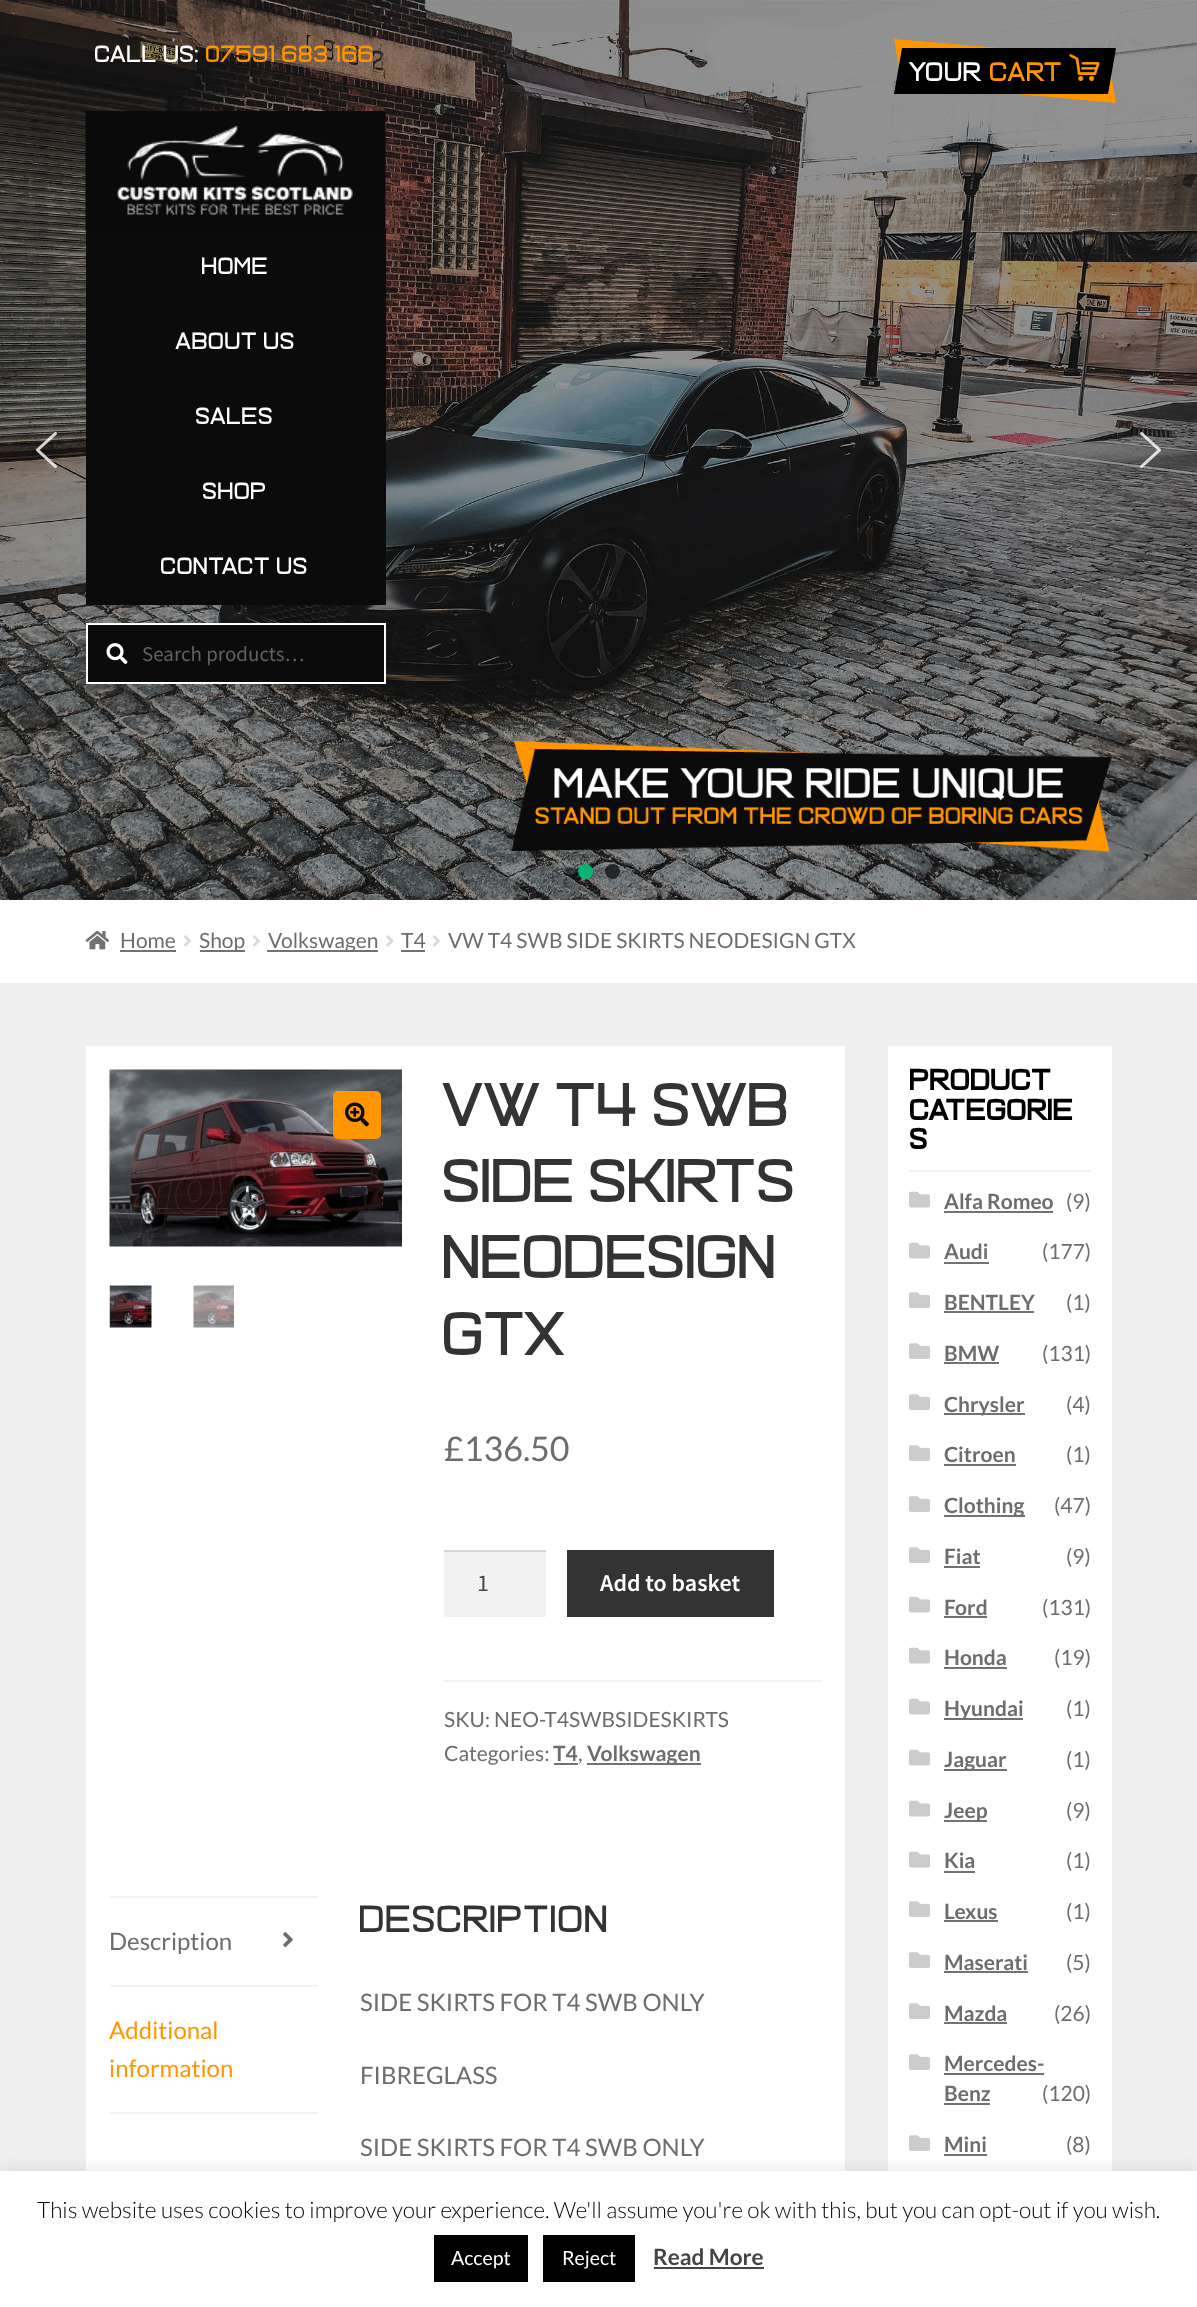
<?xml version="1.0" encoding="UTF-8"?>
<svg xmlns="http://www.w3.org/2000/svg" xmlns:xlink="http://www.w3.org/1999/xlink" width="1197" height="2307">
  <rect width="100%" height="100%" fill="#efefef" />
  <image x="0" y="0" width="1197" height="900" xlink:href="image1.png" />
  <image x="36" y="432" width="21" height="36" xlink:href="image2.png" />
  <image x="1140" y="432" width="21" height="36" xlink:href="image3.png" />
  <circle cx="585.5" cy="871.5" r="7.5" fill="#09b474" />
  <circle cx="612.5" cy="871.5" r="7.5" fill="#000000" fill-opacity="0.67" />
  <image x="85" y="111" width="301" height="120" xlink:href="image4.png" />
  <rect x="86" y="231" width="300" height="374" fill="#0b0b0c" />
  <rect x="87" y="624" width="298" height="59" fill="#0b0b0b" stroke="#ffffff" stroke-width="2" />
  <image x="106" y="643" width="22" height="22" xlink:href="image5.png" />
  <path d="M 894 39 l 214 18 l 8 46 l -214 -19 z" fill="#ff9600" />
  <path d="M 902 48 h 214 l -8 46 h -214 z" fill="#000000" />
  <image x="1069" y="54" width="31" height="27" xlink:href="image6.png" />
  <image x="511" y="741" width="601" height="111" xlink:href="image7.png" />
  <rect y="900" width="1197" height="83" fill="#ffffff" />
  <image x="85" y="930" width="25" height="20" xlink:href="image8.png" />
  <rect x="120" y="950" width="56" height="2" fill="#727272" />
  <image x="183" y="935" width="8" height="12" xlink:href="image9.png" />
  <rect x="200" y="950" width="45" height="2" fill="#727272" />
  <image x="252" y="935" width="8" height="12" xlink:href="image9.png" />
  <rect x="267" y="950" width="111" height="2" fill="#727272" />
  <image x="386" y="935" width="8" height="12" xlink:href="image10.png" />
  <rect x="401" y="950" width="24" height="2" fill="#727272" />
  <image x="432" y="935" width="8" height="12" xlink:href="image9.png" />
  <rect x="86" y="1046" width="759" height="1125" fill="#ffffff" />
  <image x="401" y="1069" width="1" height="178" xlink:href="image12.png" />
  <image x="109" y="1069" width="293" height="178" xlink:href="image11.png" />
  <rect x="333" y="1091" width="48" height="48" rx="5" fill="#ff9600" />
  <image x="345" y="1102" width="24" height="25" xlink:href="image13.png" />
  <image x="109" y="1285" width="43" height="43" xlink:href="image14.png" />
  <image x="193" y="1285" width="41" height="43" xlink:href="image15.png" />
  <rect x="444" y="1552" width="102" height="65" fill="#f2f2f2" />
  <rect x="444" y="1550" width="102" height="2" fill="#d4d4d4" />
  <rect x="567" y="1550" width="207" height="67" fill="#333333" />
  <rect x="444" y="1680" width="377" height="2" fill="#f2f2f2" />
  <rect x="554" y="1763" width="24" height="2" fill="#727272" />
  <rect x="587" y="1763" width="114" height="2" fill="#727272" />
  <rect x="110" y="1896" width="208" height="2" fill="#f2f2f2" />
  <rect x="110" y="1985" width="208" height="2" fill="#f2f2f2" />
  <image x="283" y="1932" width="10" height="16" xlink:href="image16.png" />
  <rect x="110" y="2112" width="208" height="2" fill="#f2f2f2" />
  <rect x="888" y="1046" width="224" height="1125" fill="#ffffff" />
  <rect x="909" y="1170" width="182" height="2" fill="#f2f2f2" />
  <image x="909" y="1191" width="21" height="17" xlink:href="image17.png" />
  <rect x="944" y="1211" width="109" height="2" fill="#727272" />
  <image x="909" y="1242" width="21" height="17" xlink:href="image17.png" />
  <rect x="944" y="1262" width="45" height="2" fill="#727272" />
  <image x="909" y="1292" width="21" height="16" xlink:href="image18.png" />
  <rect x="944" y="1311" width="90" height="2" fill="#727272" />
  <image x="909" y="1343" width="21" height="16" xlink:href="image18.png" />
  <rect x="944" y="1362" width="55" height="2" fill="#727272" />
  <image x="909" y="1394" width="21" height="16" xlink:href="image18.png" />
  <rect x="944" y="1413" width="81" height="2" fill="#727272" />
  <image x="909" y="1445" width="21" height="16" xlink:href="image18.png" />
  <rect x="944" y="1464" width="72" height="2" fill="#727272" />
  <image x="909" y="1496" width="21" height="16" xlink:href="image18.png" />
  <rect x="944" y="1515" width="81" height="2" fill="#727272" />
  <image x="909" y="1547" width="21" height="16" xlink:href="image18.png" />
  <rect x="944" y="1566" width="36" height="2" fill="#727272" />
  <image x="909" y="1596" width="21" height="17" xlink:href="image17.png" />
  <rect x="944" y="1616" width="43" height="2" fill="#727272" />
  <image x="909" y="1647" width="21" height="17" xlink:href="image17.png" />
  <rect x="944" y="1667" width="63" height="2" fill="#727272" />
  <image x="909" y="1698" width="21" height="17" xlink:href="image17.png" />
  <rect x="944" y="1718" width="79" height="2" fill="#727272" />
  <image x="909" y="1749" width="21" height="17" xlink:href="image17.png" />
  <rect x="944" y="1769" width="63" height="2" fill="#727272" />
  <image x="909" y="1800" width="21" height="17" xlink:href="image17.png" />
  <rect x="944" y="1820" width="43" height="2" fill="#727272" />
  <image x="909" y="1851" width="21" height="17" xlink:href="image17.png" />
  <rect x="944" y="1871" width="31" height="2" fill="#727272" />
  <image x="909" y="1901" width="21" height="16" xlink:href="image18.png" />
  <rect x="944" y="1920" width="54" height="2" fill="#727272" />
  <image x="909" y="1952" width="21" height="16" xlink:href="image18.png" />
  <rect x="944" y="1971" width="84" height="2" fill="#727272" />
  <image x="909" y="2003" width="21" height="16" xlink:href="image18.png" />
  <rect x="944" y="2022" width="63" height="2" fill="#727272" />
  <image x="909" y="2054" width="21" height="16" xlink:href="image18.png" />
  <rect x="944" y="2073" width="100" height="2" fill="#727272" />
  <rect x="944" y="2103" width="46" height="2" fill="#727272" />
  <image x="909" y="2135" width="21" height="16" xlink:href="image18.png" />
  <rect x="944" y="2154" width="43" height="2" fill="#727272" />
  <rect y="2169" width="1197" height="137" fill="#acabab" fill-opacity="0.3" filter="blur(7.5px)" />
  <rect y="2171" width="1197" height="136" fill="#ffffff" />
  <rect x="434" y="2235" width="94" height="47" fill="#000000" />
  <rect x="543" y="2235" width="92" height="47" fill="#000000" />
  <rect x="654" y="2267" width="110" height="2" fill="#444444" />
  <text x="95" y="62" style="font-family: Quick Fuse; font-size: 24px; fill: #ffffff">CALL US:</text>
  <text x="206" y="62" style="font-family: Quick Fuse; font-size: 24px; fill: #ff9600">07591 683 166</text>
  <text x="202" y="274" style="font-family: Quick Fuse; font-size: 24px; fill: #ffffff">HOME</text>
  <text x="176" y="349" style="font-family: Quick Fuse; font-size: 24px; fill: #ffffff">ABOUT US</text>
  <text x="196" y="424" style="font-family: Quick Fuse; font-size: 24px; fill: #ffffff">SALES</text>
  <text x="203" y="499" style="font-family: Quick Fuse; font-size: 24px; fill: #ffffff">SHOP</text>
  <text x="161" y="574" style="font-family: Quick Fuse; font-size: 24px; fill: #ffffff">CONTACT US</text>
  <text x="142" y="661" style="font-family: Source Sans Pro; font-size: 21px; fill: #616161">Search products…</text>
  <text x="910" y="81" style="font-family: Quick Fuse; font-size: 27.5px; fill: #ffffff">Your</text>
  <text x="990" y="81" style="font-family: Quick Fuse; font-size: 27.5px; fill: #ff9600">Cart</text>
  <text x="120" y="948" style="font-family: Lato; font-size: 21px; fill: #6d6d6d">Home</text>
  <text x="199" y="948" style="font-family: Lato; font-size: 21px; fill: #6d6d6d">Shop</text>
  <text x="268" y="948" style="font-family: Lato; font-size: 21px; fill: #6d6d6d">Volkswagen</text>
  <text x="401" y="948" style="font-family: Lato; font-size: 21px; fill: #6d6d6d">T4</text>
  <text x="448" y="948" style="font-family: Lato; font-size: 21px; fill: #6d6d6d">VW T4 SWB SIDE SKIRTS NEODESIGN GTX</text>
  <text x="444" y="1126" style="font-family: Quick Fuse; font-size: 63px; letter-spacing: -1.5px; fill: #333333">VW T4 SWB</text>
  <text x="444" y="1202" style="font-family: Quick Fuse; font-size: 63px; letter-spacing: -1.5px; fill: #333333">SIDE SKIRTS</text>
  <text x="444" y="1278" style="font-family: Quick Fuse; font-size: 63px; letter-spacing: -1.5px; fill: #333333">NEODESIGN</text>
  <text x="444" y="1355" style="font-family: Quick Fuse; font-size: 63px; letter-spacing: -1.5px; fill: #333333">GTX</text>
  <text x="444" y="1461" style="font-family: Lato; font-size: 34px; fill: #6d6d6d">£136.50</text>
  <text x="477" y="1591" style="font-family: Source Sans Pro; font-size: 24px; fill: #43454b">1</text>
  <text x="600" y="1591" style="font-family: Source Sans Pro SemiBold; font-size: 24px; font-weight: 600; fill: #ffffff">Add to basket</text>
  <text x="444" y="1727" style="font-family: Lato; font-size: 21px; fill: #6d6d6d">SKU: NEO-T4SWBSIDESKIRTS</text>
  <text x="444" y="1761" style="font-family: Lato; font-size: 21px; fill: #6d6d6d">Categories:</text>
  <text x="553" y="1761" style="font-family: Lato; font-size: 21px; font-weight: bold; fill: #6d6d6d">T4</text>
  <text x="578" y="1761" style="font-family: Lato; font-size: 21px; fill: #6d6d6d">,</text>
  <text x="587" y="1761" style="font-family: Lato; font-size: 21px; font-weight: bold; fill: #6d6d6d">Volkswagen</text>
  <text x="109" y="1950" style="font-family: Lato; font-size: 24px; fill: #6d6d6d">Description</text>
  <text x="109" y="2039" style="font-family: Lato; font-size: 24px; fill: #ff9600">Additional</text>
  <text x="109" y="2077" style="font-family: Lato; font-size: 24px; fill: #ff9600">information</text>
  <text x="360" y="1932" style="font-family: Quick Fuse; font-size: 38.75px; fill: #333333">Description</text>
  <text x="360" y="2011" style="font-family: Lato; font-size: 24px; fill: #6d6d6d">SIDE SKIRTS FOR T4 SWB ONLY</text>
  <text x="360" y="2084" style="font-family: Lato; font-size: 24px; fill: #6d6d6d">FIBREGLASS</text>
  <text x="360" y="2156" style="font-family: Lato; font-size: 24px; fill: #6d6d6d">SIDE SKIRTS FOR T4 SWB ONLY</text>
  <text x="910" y="1090" style="font-family: Quick Fuse; font-size: 29.75px; font-weight: bold; fill: #000000">PRODUCT</text>
  <text x="910" y="1120" style="font-family: Quick Fuse; font-size: 29.75px; font-weight: bold; fill: #000000">CATEGORIE</text>
  <text x="910" y="1149" style="font-family: Quick Fuse; font-size: 29.75px; font-weight: bold; fill: #000000">S</text>
  <text x="944" y="1209" style="font-family: Lato; font-size: 21px; font-weight: bold; fill: #6d6d6d">Alfa Romeo</text>
  <text x="1066" y="1209" style="font-family: Lato; font-size: 21px; fill: #6d6d6d">(9)</text>
  <text x="944" y="1259" style="font-family: Lato; font-size: 21px; font-weight: bold; fill: #6d6d6d">Audi</text>
  <text x="1042" y="1259" style="font-family: Lato; font-size: 21px; fill: #6d6d6d">(177)</text>
  <text x="944" y="1310" style="font-family: Lato; font-size: 21px; font-weight: bold; fill: #6d6d6d">BENTLEY</text>
  <text x="1066" y="1310" style="font-family: Lato; font-size: 21px; fill: #6d6d6d">(1)</text>
  <text x="944" y="1361" style="font-family: Lato; font-size: 21px; font-weight: bold; fill: #6d6d6d">BMW</text>
  <text x="1042" y="1361" style="font-family: Lato; font-size: 21px; fill: #6d6d6d">(131)</text>
  <text x="944" y="1412" style="font-family: Lato; font-size: 21px; font-weight: bold; fill: #6d6d6d">Chrysler</text>
  <text x="1066" y="1412" style="font-family: Lato; font-size: 21px; fill: #6d6d6d">(4)</text>
  <text x="944" y="1462" style="font-family: Lato; font-size: 21px; font-weight: bold; fill: #6d6d6d">Citroen</text>
  <text x="1066" y="1462" style="font-family: Lato; font-size: 21px; fill: #6d6d6d">(1)</text>
  <text x="944" y="1513" style="font-family: Lato; font-size: 21px; font-weight: bold; fill: #6d6d6d">Clothing</text>
  <text x="1054" y="1513" style="font-family: Lato; font-size: 21px; fill: #6d6d6d">(47)</text>
  <text x="944" y="1564" style="font-family: Lato; font-size: 21px; font-weight: bold; fill: #6d6d6d">Fiat</text>
  <text x="1066" y="1564" style="font-family: Lato; font-size: 21px; fill: #6d6d6d">(9)</text>
  <text x="944" y="1615" style="font-family: Lato; font-size: 21px; font-weight: bold; fill: #6d6d6d">Ford</text>
  <text x="1042" y="1615" style="font-family: Lato; font-size: 21px; fill: #6d6d6d">(131)</text>
  <text x="944" y="1665" style="font-family: Lato; font-size: 21px; font-weight: bold; fill: #6d6d6d">Honda</text>
  <text x="1054" y="1665" style="font-family: Lato; font-size: 21px; fill: #6d6d6d">(19)</text>
  <text x="944" y="1716" style="font-family: Lato; font-size: 21px; font-weight: bold; fill: #6d6d6d">Hyundai</text>
  <text x="1066" y="1716" style="font-family: Lato; font-size: 21px; fill: #6d6d6d">(1)</text>
  <text x="944" y="1767" style="font-family: Lato; font-size: 21px; font-weight: bold; fill: #6d6d6d">Jaguar</text>
  <text x="1066" y="1767" style="font-family: Lato; font-size: 21px; fill: #6d6d6d">(1)</text>
  <text x="944" y="1818" style="font-family: Lato; font-size: 21px; font-weight: bold; fill: #6d6d6d">Jeep</text>
  <text x="1066" y="1818" style="font-family: Lato; font-size: 21px; fill: #6d6d6d">(9)</text>
  <text x="944" y="1868" style="font-family: Lato; font-size: 21px; font-weight: bold; fill: #6d6d6d">Kia</text>
  <text x="1066" y="1868" style="font-family: Lato; font-size: 21px; fill: #6d6d6d">(1)</text>
  <text x="944" y="1919" style="font-family: Lato; font-size: 21px; font-weight: bold; fill: #6d6d6d">Lexus</text>
  <text x="1066" y="1919" style="font-family: Lato; font-size: 21px; fill: #6d6d6d">(1)</text>
  <text x="944" y="1970" style="font-family: Lato; font-size: 21px; font-weight: bold; fill: #6d6d6d">Maserati</text>
  <text x="1066" y="1970" style="font-family: Lato; font-size: 21px; fill: #6d6d6d">(5)</text>
  <text x="944" y="2021" style="font-family: Lato; font-size: 21px; font-weight: bold; fill: #6d6d6d">Mazda</text>
  <text x="1054" y="2021" style="font-family: Lato; font-size: 21px; fill: #6d6d6d">(26)</text>
  <text x="944" y="2071" style="font-family: Lato; font-size: 21px; font-weight: bold; fill: #6d6d6d">Mercedes-</text>
  <text x="944" y="2101" style="font-family: Lato; font-size: 21px; font-weight: bold; fill: #6d6d6d">Benz</text>
  <text x="1042" y="2101" style="font-family: Lato; font-size: 21px; fill: #6d6d6d">(120)</text>
  <text x="944" y="2152" style="font-family: Lato; font-size: 21px; font-weight: bold; fill: #6d6d6d">Mini</text>
  <text x="1066" y="2152" style="font-family: Lato; font-size: 21px; fill: #6d6d6d">(8)</text>
  <text x="37" y="2218" style="font-family: Lato; font-size: 22.5px; font-weight: 300; fill: #000000">This website uses cookies to improve your experience. We'll assume you're ok with this, but you can opt-out if you wish.</text>
  <text x="451" y="2265" style="font-family: Lato; font-size: 19.5px; fill: #ffffff">Accept</text>
  <text x="562" y="2265" style="font-family: Lato; font-size: 19.5px; fill: #ffffff">Reject</text>
  <text x="653" y="2265" style="font-family: Lato; font-size: 22.5px; font-weight: bold; fill: #444444">Read More</text>
</svg>
